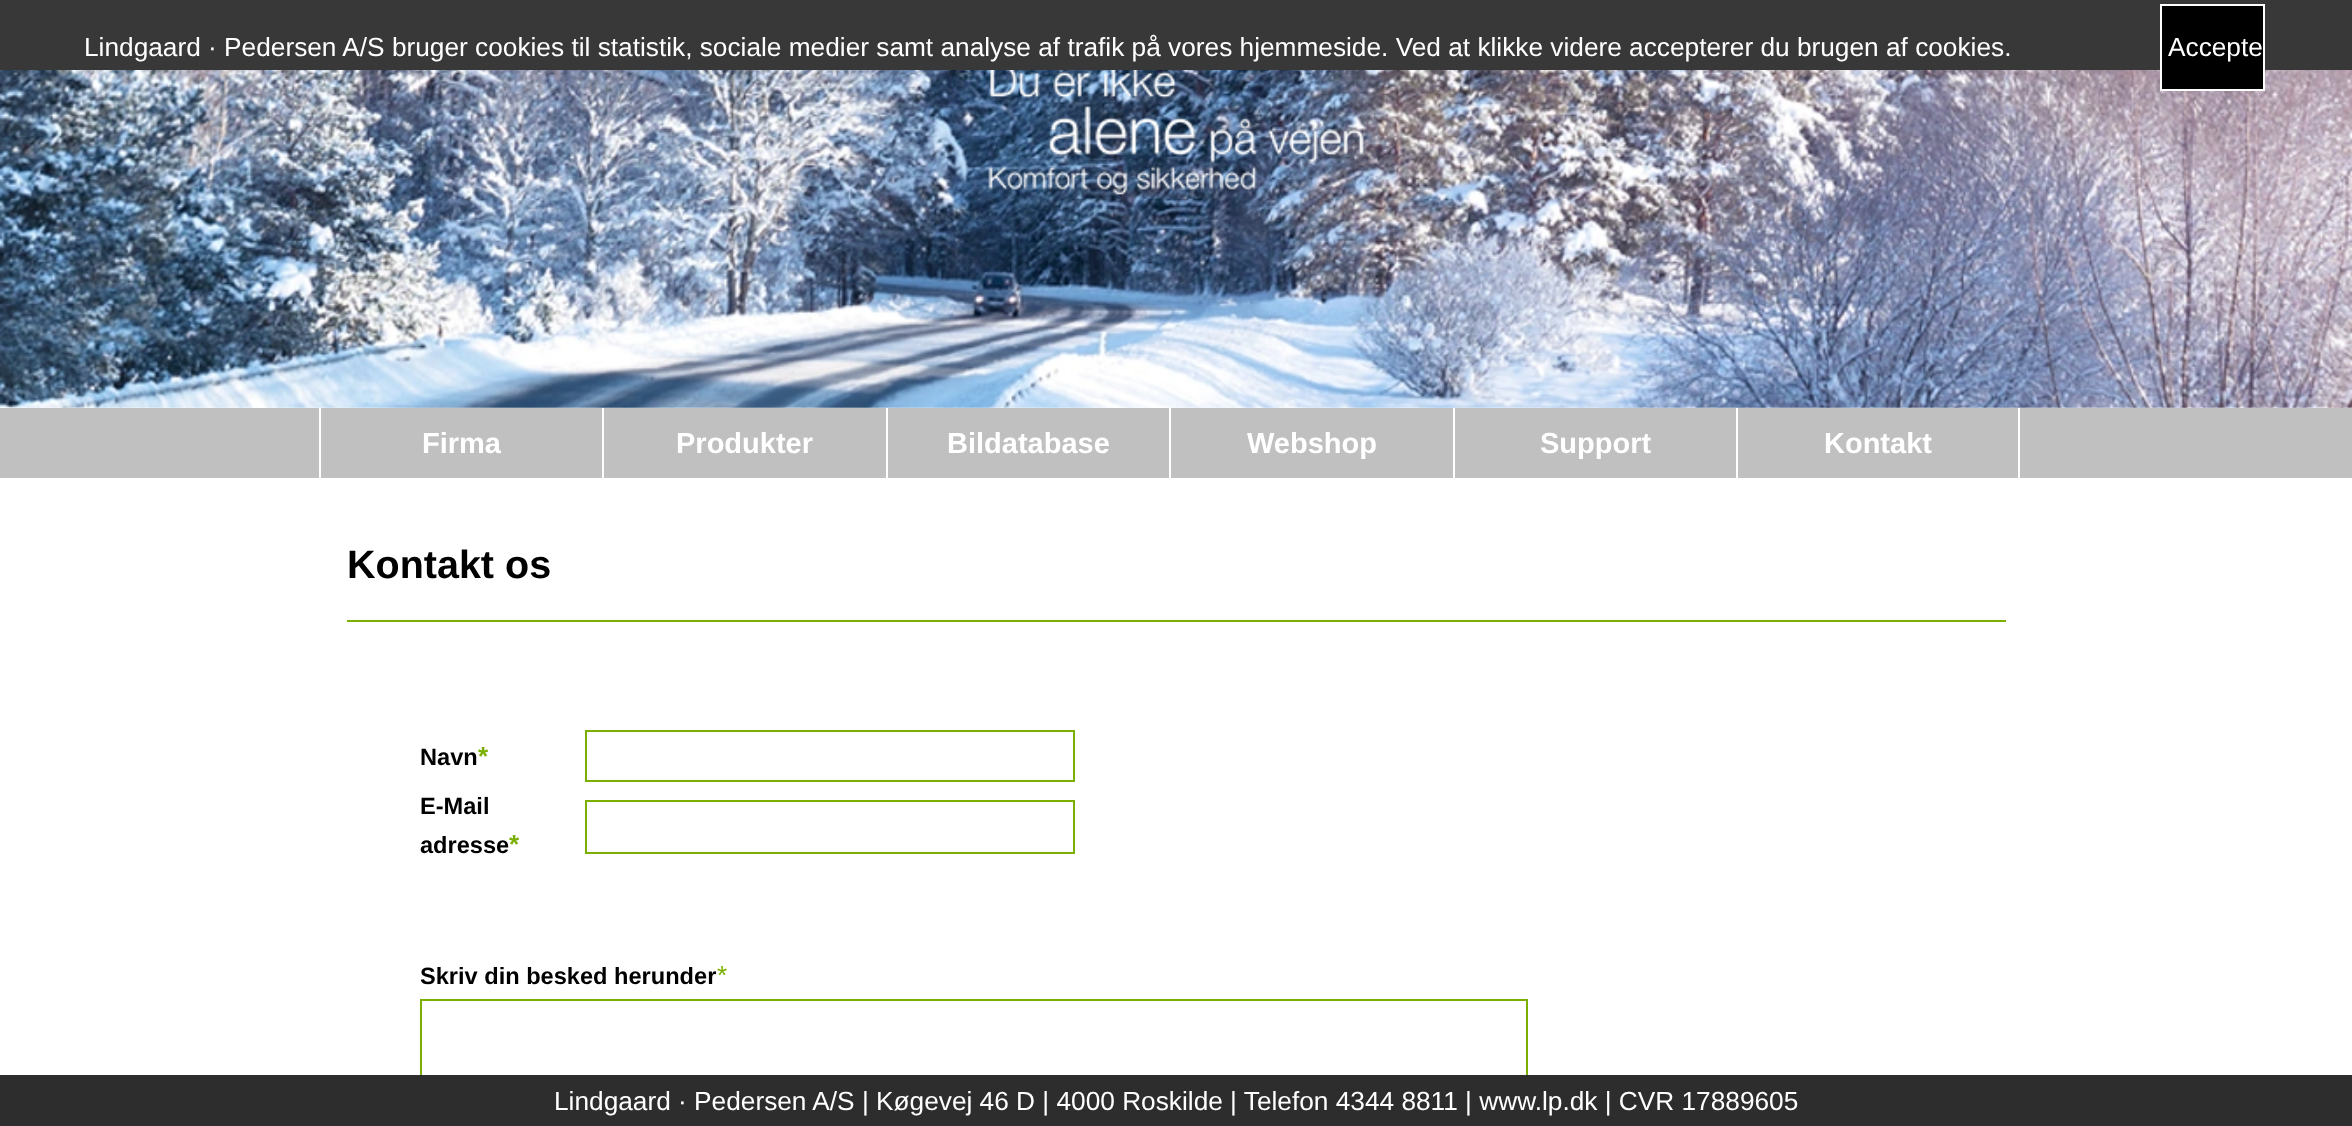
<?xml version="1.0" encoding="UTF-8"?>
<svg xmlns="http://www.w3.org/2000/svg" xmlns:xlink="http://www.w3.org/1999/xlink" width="2352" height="1126">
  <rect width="100%" height="100%" fill="#ffffff" />
  <rect width="2352" height="70" fill="#383838" />
  <image x="0" y="70" width="2352" height="338" xlink:href="image1.png" />
  <rect x="2161" y="5" width="103" height="85" fill="#000000" stroke="#ffffff" stroke-width="2" />
  <image x="988" y="70" width="376" height="125" xlink:href="image2.png" />
  <rect y="408" width="2352" height="70" fill="#c0c0c0" />
  <rect x="319" y="408" width="2" height="70" fill="#ffffff" />
  <rect x="602" y="408" width="2" height="70" fill="#ffffff" />
  <rect x="886" y="408" width="2" height="70" fill="#ffffff" />
  <rect x="1169" y="408" width="2" height="70" fill="#ffffff" />
  <rect x="1453" y="408" width="2" height="70" fill="#ffffff" />
  <rect x="2018" y="408" width="2" height="70" fill="#ffffff" />
  <rect x="1736" y="408" width="2" height="70" fill="#ffffff" />
  <rect x="347" y="620" width="1659" height="2" fill="#7cb000" />
  <rect x="586" y="731" width="488" height="50" fill="none" stroke="#7cb000" stroke-width="2" />
  <rect x="586" y="801" width="488" height="52" fill="none" stroke="#7cb000" stroke-width="2" />
  <rect x="421" y="1000" width="1106" height="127" fill="none" stroke="#7cb000" stroke-width="2" />
  <rect y="1075" width="2352" height="51" fill="#2d2d2d" />
  <text x="84" y="56" style="font-family: Liberation Sans; font-size: 26.25px; fill: #ffffff">Lindgaard · Pedersen A/S bruger cookies til statistik, sociale medier samt analyse af trafik på vores hjemmeside. Ved at klikke videre accepterer du brugen af cookies.</text>
  <text x="2168" y="56" style="font-family: Liberation Sans; font-size: 26.25px; fill: #ffffff">Accepte</text>
  <text x="422" y="453" style="font-family: Liberation Sans; font-size: 29px; font-weight: bold; fill: #ffffff">Firma</text>
  <text x="676" y="453" style="font-family: Liberation Sans; font-size: 29px; font-weight: bold; fill: #ffffff">Produkter</text>
  <text x="947" y="453" style="font-family: Liberation Sans; font-size: 29px; font-weight: bold; fill: #ffffff">Bildatabase</text>
  <text x="1247" y="453" style="font-family: Liberation Sans; font-size: 29px; font-weight: bold; fill: #ffffff">Webshop</text>
  <text x="1540" y="453" style="font-family: Liberation Sans; font-size: 29px; font-weight: bold; fill: #ffffff">Support</text>
  <text x="1824" y="453" style="font-family: Liberation Sans; font-size: 29px; font-weight: bold; fill: #ffffff">Kontakt</text>
  <text x="347" y="578" style="font-family: Liberation Sans; font-size: 39.5px; font-weight: bold; fill: #000000">Kontakt os</text>
  <text x="420" y="765" style="font-family: Liberation Sans; font-size: 23.6px; font-weight: bold; fill: #000000">Navn</text>
  <text x="478" y="765" style="font-family: Liberation Sans; font-size: 26px; font-weight: bold; fill: #7cb000">*</text>
  <text x="420" y="814" style="font-family: Liberation Sans; font-size: 23.6px; font-weight: bold; fill: #000000">E-Mail</text>
  <text x="420" y="853" style="font-family: Liberation Sans; font-size: 23.6px; font-weight: bold; fill: #000000">adresse</text>
  <text x="509" y="853" style="font-family: Liberation Sans; font-size: 26px; font-weight: bold; fill: #7cb000">*</text>
  <text x="420" y="984" style="font-family: Liberation Sans; font-size: 23.6px; font-weight: bold; fill: #000000">Skriv din besked herunder</text>
  <text x="717" y="984" style="font-family: Liberation Sans; font-size: 26px; fill: #7cb000">*</text>
  <text x="554" y="1110" style="font-family: Liberation Sans; font-size: 26.25px; fill: #ffffff">Lindgaard · Pedersen A/S | Køgevej 46 D | 4000 Roskilde | Telefon 4344 8811 | www.lp.dk | CVR 17889605</text>
</svg>
